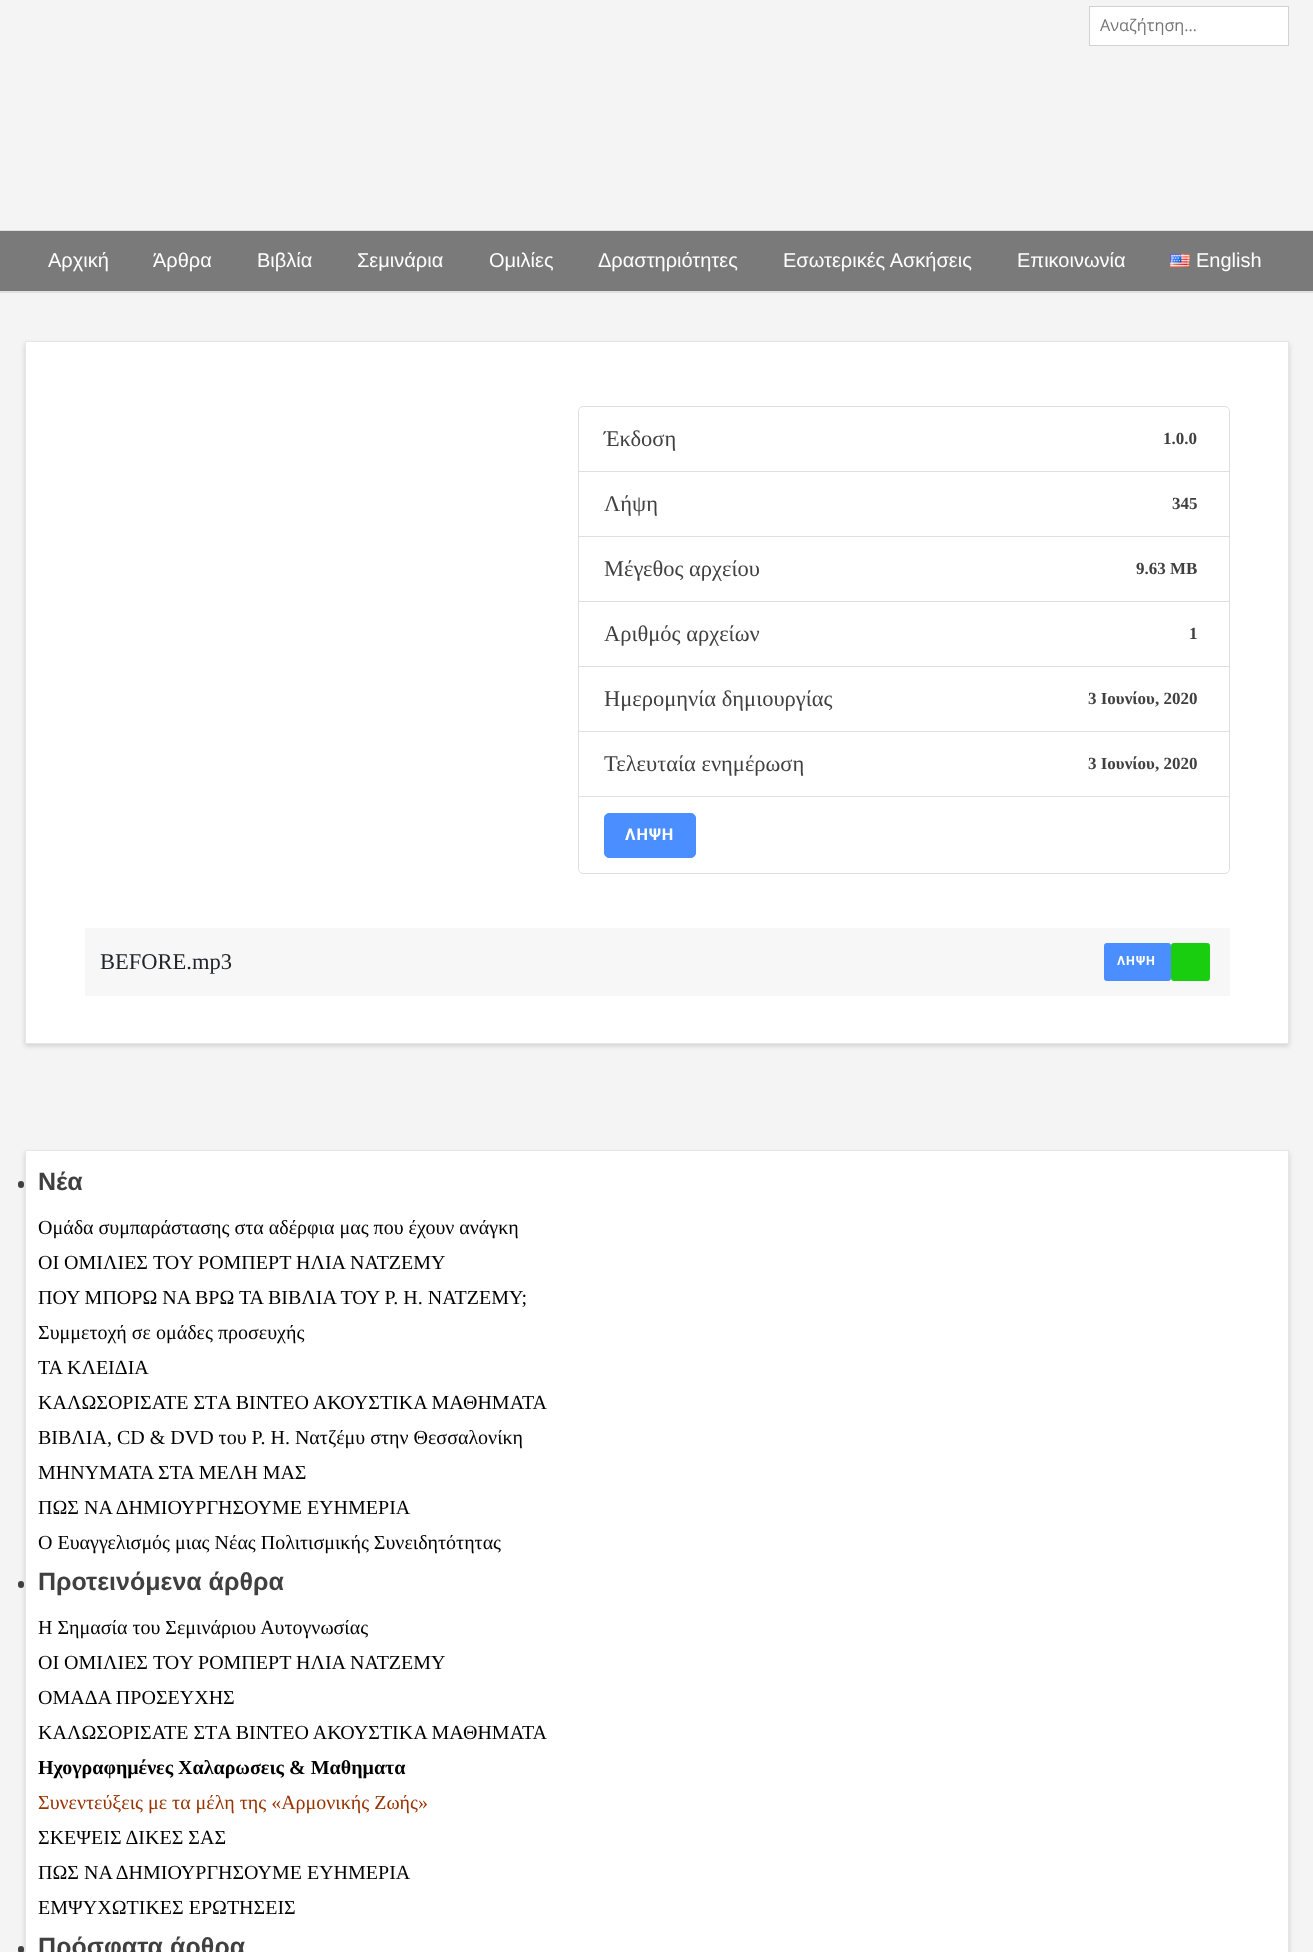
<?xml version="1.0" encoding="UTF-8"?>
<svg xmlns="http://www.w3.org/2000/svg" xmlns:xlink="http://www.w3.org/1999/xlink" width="1313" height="1952">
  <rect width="100%" height="100%" fill="#f4f4f4" />
  <path d="M 0 291 v 2 h 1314 v -292 v 290 z" fill="#e0e0e0" />
  <rect x="1089.5" y="6.5" width="199" height="39" fill="#ffffff" stroke="#d1d1d1" />
  <path d="M 0 230 v 1 h 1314 v 59 v -60 z" fill="#e0e0e0" />
  <rect y="231" width="1313" height="60" fill="#7a7a7a" />
  <image x="1170" y="253" width="20" height="15" xlink:href="image1.png" />
  <rect x="25" y="344" width="1264" height="702" fill="#000000" fill-opacity="0.15" filter="blur(2.5px)" />
  <rect x="25.5" y="341.5" width="1263" height="702" fill="#ffffff" stroke="#e6e6e6" />
  <path d="M 583 406.5 h 642 c 2.5 0 4.5 2 4.5 4.5 v 61.5 h -651 v -61.5 c 0 -2.5 2 -4.5 4.5 -4.5 z" fill="none" stroke="#dfdfdf" />
  <rect x="579" y="472" width="650" height="1" fill="#ffffff" />
  <rect x="578.5" y="471.5" width="651" height="66" fill="none" stroke="#dfdfdf" />
  <rect x="579" y="537" width="650" height="1" fill="#ffffff" />
  <rect x="578.5" y="536.5" width="651" height="66" fill="none" stroke="#dfdfdf" />
  <rect x="579" y="602" width="650" height="1" fill="#ffffff" />
  <rect x="578.5" y="601.5" width="651" height="66" fill="none" stroke="#dfdfdf" />
  <rect x="579" y="667" width="650" height="1" fill="#ffffff" />
  <rect x="578.5" y="666.5" width="651" height="66" fill="none" stroke="#dfdfdf" />
  <rect x="579" y="732" width="650" height="1" fill="#ffffff" />
  <rect x="578.5" y="731.5" width="651" height="66" fill="none" stroke="#dfdfdf" />
  <path d="M 578.5 796.5 h 651 v 72.5 c 0 2.5 -2 4.5 -4.5 4.5 h -642 c -2.5 0 -4.5 -2 -4.5 -4.5 z" fill="#ffffff" stroke="#dfdfdf" />
  <rect x="604.5" y="813.5" width="91" height="44" rx="4.5" fill="#4a8eff" stroke="#4a8eff" />
  <rect x="85" y="928" width="1145" height="68" fill="#f7f7f7" />
  <rect x="1104.5" y="943.5" width="66" height="37" rx="2" fill="#4a8eff" stroke="#4a8eff" />
  <rect x="1171.5" y="943.5" width="38" height="37" rx="2" fill="#18ce0f" stroke="#18ce0f" />
  <rect x="25" y="1153" width="1264" height="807" fill="#000000" fill-opacity="0.15" filter="blur(2.5px)" />
  <rect x="25.5" y="1150.5" width="1263" height="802" fill="#ffffff" stroke="#e6e6e6" />
  <rect x="18" y="1181" width="6" height="7" rx="3" fill="#404040" />
  <rect x="18" y="1581" width="6" height="7" rx="3" fill="#404040" />
  <rect x="18" y="1946" width="6" height="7" rx="3" fill="#404040" />
  <text x="1100" y="31" style="font-family: Open Sans; font-size: 16.25px; fill: #757575">Αναζήτηση…</text>
  <text x="48" y="267" style="font-family: Liberation Sans; font-size: 20px; fill: #ffffff">Αρχική</text>
  <text x="153" y="267" style="font-family: Liberation Sans; font-size: 20px; fill: #ffffff">Άρθρα</text>
  <text x="257" y="267" style="font-family: Liberation Sans; font-size: 20px; fill: #ffffff">Βιβλία</text>
  <text x="357" y="267" style="font-family: Liberation Sans; font-size: 20px; fill: #ffffff">Σεμινάρια</text>
  <text x="489" y="267" style="font-family: Liberation Sans; font-size: 20px; fill: #ffffff">Ομιλίες</text>
  <text x="598" y="267" style="font-family: Liberation Sans; font-size: 20px; fill: #ffffff">Δραστηριότητες</text>
  <text x="783" y="267" style="font-family: Liberation Sans; font-size: 20px; fill: #ffffff">Εσωτερικές Ασκήσεις</text>
  <text x="1017" y="267" style="font-family: Liberation Sans; font-size: 20px; fill: #ffffff">Επικοινωνία</text>
  <text x="1196" y="267" style="font-family: Liberation Sans; font-size: 20px; fill: #ffffff">English</text>
  <text x="604" y="446" style="font-family: Liberation Serif; font-size: 22.5px; fill: #404040">Έκδοση</text>
  <text x="1163" y="444" style="font-family: Liberation Serif; font-size: 17px; font-weight: bold; fill: #404040">1.0.0</text>
  <text x="604" y="511" style="font-family: Liberation Serif; font-size: 22.5px; fill: #404040">Λήψη</text>
  <text x="1172" y="509" style="font-family: Liberation Serif; font-size: 17px; font-weight: bold; fill: #404040">345</text>
  <text x="604" y="576" style="font-family: Liberation Serif; font-size: 22.5px; fill: #404040">Μέγεθος αρχείου</text>
  <text x="1136" y="574" style="font-family: Liberation Serif; font-size: 17px; font-weight: bold; fill: #404040">9.63 MB</text>
  <text x="604" y="641" style="font-family: Liberation Serif; font-size: 22.5px; fill: #404040">Αριθμός αρχείων</text>
  <text x="1189" y="639" style="font-family: Liberation Serif; font-size: 17px; font-weight: bold; fill: #404040">1</text>
  <text x="604" y="706" style="font-family: Liberation Serif; font-size: 22.5px; fill: #404040">Ημερομηνία δημιουργίας</text>
  <text x="1088" y="704" style="font-family: Liberation Serif; font-size: 17px; font-weight: bold; fill: #404040">3 Ιουνίου, 2020</text>
  <text x="604" y="771" style="font-family: Liberation Serif; font-size: 22.5px; fill: #404040">Τελευταία ενημέρωση</text>
  <text x="1088" y="769" style="font-family: Liberation Serif; font-size: 17px; font-weight: bold; fill: #404040">3 Ιουνίου, 2020</text>
  <text x="625" y="840" style="font-family: Roboto; font-size: 16.25px; font-weight: bold; letter-spacing: 1px; fill: #ffffff">ΛΗΨΗ</text>
  <text x="100" y="969" style="font-family: Liberation Serif; font-size: 22.5px; fill: #212529">BEFORE.mp3</text>
  <text x="1117" y="965" style="font-family: Roboto; font-size: 12.5px; font-weight: bold; letter-spacing: 1px; fill: #ffffff">ΛΗΨΗ</text>
  <text x="38" y="1190" style="font-family: Liberation Sans; font-size: 25px; font-weight: bold; fill: #404040">Νέα</text>
  <text x="38" y="1234" style="font-family: Liberation Serif; font-size: 20px; fill: #000000">Ομάδα συμπαράστασης στα αδέρφια μας που έχουν ανάγκη</text>
  <text x="38" y="1269" style="font-family: Liberation Serif; font-size: 20px; fill: #000000">ΟΙ ΟΜΙΛΙΕΣ TOY ΡΟΜΠΕΡΤ ΗΛΙΑ ΝΑΤΖΕΜΥ</text>
  <text x="38" y="1304" style="font-family: Liberation Serif; font-size: 20px; fill: #000000">ΠΟΥ ΜΠΟΡΩ ΝΑ ΒΡΩ ΤΑ ΒΙΒΛΙΑ ΤΟΥ Ρ. Η. ΝΑΤΖΕΜΥ;</text>
  <text x="38" y="1339" style="font-family: Liberation Serif; font-size: 20px; fill: #000000">Συμμετοχή σε ομάδες προσευχής</text>
  <text x="38" y="1374" style="font-family: Liberation Serif; font-size: 20px; fill: #000000">ΤΑ ΚΛΕΙΔΙΑ</text>
  <text x="38" y="1409" style="font-family: Liberation Serif; font-size: 20px; fill: #000000">ΚΑΛΩΣΟΡΙΣΑΤΕ ΣΤA ΒΙΝΤΕΟ ΑΚΟΥΣΤΙΚΑ ΜΑΘΗΜΑΤΑ</text>
  <text x="38" y="1444" style="font-family: Liberation Serif; font-size: 20px; fill: #000000">ΒΙΒΛΙΑ, CD &amp; DVD του Ρ. Η. Νατζέμυ στην Θεσσαλονίκη</text>
  <text x="38" y="1479" style="font-family: Liberation Serif; font-size: 20px; fill: #000000">ΜΗΝΥΜΑΤΑ ΣΤΑ ΜΕΛΗ ΜΑΣ</text>
  <text x="38" y="1514" style="font-family: Liberation Serif; font-size: 20px; fill: #000000">ΠΩΣ ΝΑ ΔΗΜΙΟΥΡΓΗΣΟΥΜΕ ΕΥΗΜΕΡΙΑ</text>
  <text x="38" y="1549" style="font-family: Liberation Serif; font-size: 20px; fill: #000000">Ο Ευαγγελισμός μιας Νέας Πολιτισμικής Συνειδητότητας</text>
  <text x="38" y="1590" style="font-family: Liberation Sans; font-size: 25px; font-weight: bold; fill: #404040">Προτεινόμενα άρθρα</text>
  <text x="38" y="1634" style="font-family: Liberation Serif; font-size: 20px; fill: #000000">H Σημασία του Σεμινάριου Αυτογνωσίας</text>
  <text x="38" y="1669" style="font-family: Liberation Serif; font-size: 20px; fill: #000000">ΟΙ ΟΜΙΛΙΕΣ TOY ΡΟΜΠΕΡΤ ΗΛΙΑ ΝΑΤΖΕΜΥ</text>
  <text x="38" y="1704" style="font-family: Liberation Serif; font-size: 20px; fill: #000000">ΟΜΑΔΑ ΠΡΟΣΕΥΧΗΣ</text>
  <text x="38" y="1739" style="font-family: Liberation Serif; font-size: 20px; fill: #000000">ΚΑΛΩΣΟΡΙΣΑΤΕ ΣΤA ΒΙΝΤΕΟ ΑΚΟΥΣΤΙΚΑ ΜΑΘΗΜΑΤΑ</text>
  <text x="38" y="1774" style="font-family: Liberation Serif; font-size: 20px; font-weight: bold; fill: #000000">Ηχογραφημένες Χαλαρωσεις &amp; Μαθηματα</text>
  <text x="38" y="1809" style="font-family: Liberation Serif; font-size: 20px; fill: #993300">Συνεντεύξεις με τα μέλη της «Αρμονικής Ζωής»</text>
  <text x="38" y="1844" style="font-family: Liberation Serif; font-size: 20px; fill: #000000">ΣΚΕΨΕΙΣ ΔΙΚΕΣ ΣΑΣ</text>
  <text x="38" y="1879" style="font-family: Liberation Serif; font-size: 20px; fill: #000000">ΠΩΣ ΝΑ ΔΗΜΙΟΥΡΓΗΣΟΥΜΕ ΕΥΗΜΕΡΙΑ</text>
  <text x="38" y="1914" style="font-family: Liberation Serif; font-size: 20px; fill: #000000">ΕΜΨΥΧΩΤΙΚΕΣ ΕΡΩΤΗΣΕΙΣ</text>
  <text x="38" y="1955" style="font-family: Liberation Sans; font-size: 25px; font-weight: bold; fill: #404040">Πρόσφατα άρθρα</text>
</svg>
